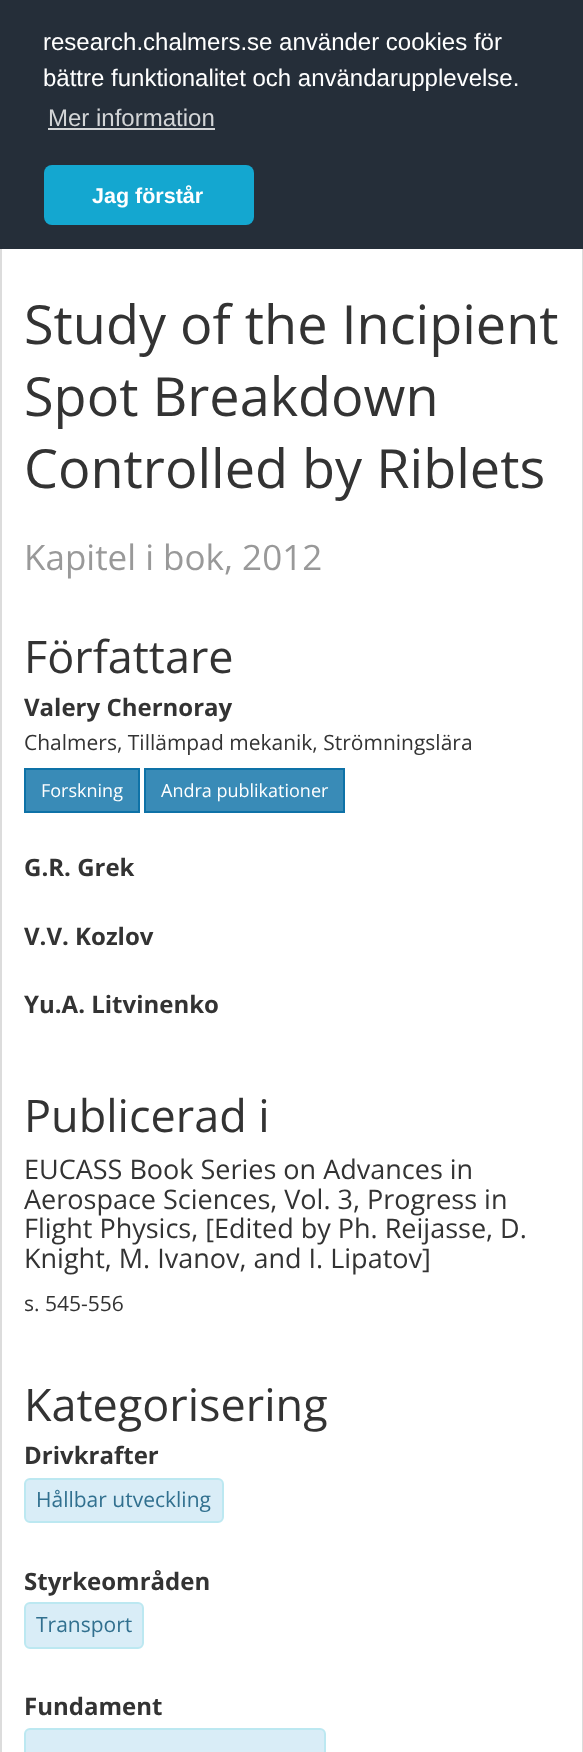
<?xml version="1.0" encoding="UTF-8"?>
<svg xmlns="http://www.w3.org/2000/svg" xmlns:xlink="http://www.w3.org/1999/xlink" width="583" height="1752">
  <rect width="100%" height="100%" fill="#ffffff" />
  <rect width="583" height="249" fill="#252e39" />
  <rect x="48" y="128" width="167" height="2" fill="#d3d5d7" />
  <rect x="44" y="165" width="210" height="60" rx="8" fill="#14a7d0" />
  <rect x="582" y="249" width="1" height="1503" fill="#dcdcdc" />
  <rect y="249" width="2" height="1503" fill="#dcdcdc" />
  <rect x="25" y="769" width="114" height="43" fill="#398bb7" stroke="#0e72a7" stroke-width="2" />
  <rect x="145" y="769" width="199" height="43" fill="#398bb7" stroke="#0e72a7" stroke-width="2" />
  <rect x="25" y="1479" width="198" height="43" rx="5" fill="#d9edf7" stroke="#bce8f1" stroke-width="2" />
  <rect x="25" y="1603" width="118" height="45" rx="5" fill="#d9edf7" stroke="#bce8f1" stroke-width="2" />
  <rect x="25" y="1729" width="300" height="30" rx="5" fill="#d9edf7" stroke="#bce8f1" stroke-width="2" />
  <text x="43" y="50" style="font-family: Liberation Sans; font-size: 24px; fill: #ffffff">research.chalmers.se använder cookies för</text>
  <text x="43" y="86" style="font-family: Liberation Sans; font-size: 24px; fill: #ffffff">bättre funktionalitet och användarupplevelse.</text>
  <text x="48" y="126" style="font-family: Liberation Sans; font-size: 24px; fill: #d3d5d7">Mer information</text>
  <text x="92" y="203" style="font-family: Liberation Sans; font-size: 21.5px; font-weight: bold; fill: #ffffff">Jag förstår</text>
  <text x="24" y="344" style="font-family: Open Sans; font-size: 54px; fill: #333333">Study of the Incipient</text>
  <text x="24" y="416" style="font-family: Open Sans; font-size: 54px; fill: #333333">Spot Breakdown</text>
  <text x="24" y="488" style="font-family: Open Sans; font-size: 54px; fill: #333333">Controlled by Riblets</text>
  <text x="24" y="570" style="font-family: Open Sans; font-size: 35px; fill: #999999">Kapitel i bok, 2012</text>
  <text x="24" y="673" style="font-family: Open Sans; font-size: 45px; fill: #333333">Författare</text>
  <text x="24" y="716" style="font-family: Open Sans; font-size: 24px; font-weight: bold; fill: #333333">Valery Chernoray</text>
  <text x="24" y="750" style="font-family: Open Sans; font-size: 21px; fill: #333333">Chalmers, Tillämpad mekanik, Strömningslära</text>
  <text x="41" y="797" style="font-family: Open Sans; font-size: 18px; fill: #ffffff">Forskning</text>
  <text x="161" y="797" style="font-family: Open Sans; font-size: 18px; fill: #ffffff">Andra publikationer</text>
  <text x="24" y="876" style="font-family: Open Sans; font-size: 24px; font-weight: bold; fill: #333333">G.R. Grek</text>
  <text x="24" y="945" style="font-family: Open Sans; font-size: 24px; font-weight: bold; fill: #333333">V.V. Kozlov</text>
  <text x="24" y="1013" style="font-family: Open Sans; font-size: 24px; font-weight: bold; fill: #333333">Yu.A. Litvinenko</text>
  <text x="24" y="1132" style="font-family: Open Sans; font-size: 45px; fill: #333333">Publicerad i</text>
  <text x="24" y="1179" style="font-family: Open Sans; font-size: 27px; fill: #333333">EUCASS Book Series on Advances in</text>
  <text x="24" y="1209" style="font-family: Open Sans; font-size: 27px; fill: #333333">Aerospace Sciences, Vol. 3, Progress in</text>
  <text x="24" y="1238" style="font-family: Open Sans; font-size: 27px; fill: #333333">Flight Physics, [Edited by Ph. Reijasse, D.</text>
  <text x="24" y="1268" style="font-family: Open Sans; font-size: 27px; fill: #333333">Knight, M. Ivanov, and I. Lipatov]</text>
  <text x="24" y="1311" style="font-family: Open Sans; font-size: 21px; fill: #333333">s. 545-556</text>
  <text x="24" y="1421" style="font-family: Open Sans; font-size: 45px; fill: #333333">Kategorisering</text>
  <text x="24" y="1464" style="font-family: Open Sans; font-size: 24px; font-weight: bold; fill: #333333">Drivkrafter</text>
  <text x="36" y="1507" style="font-family: Open Sans; font-size: 21px; fill: #31708f">Hållbar utveckling</text>
  <text x="24" y="1590" style="font-family: Open Sans; font-size: 24px; font-weight: bold; fill: #333333">Styrkeområden</text>
  <text x="36" y="1632" style="font-family: Open Sans; font-size: 21px; fill: #31708f">Transport</text>
  <text x="24" y="1715" style="font-family: Open Sans; font-size: 24px; font-weight: bold; fill: #333333">Fundament</text>
</svg>
